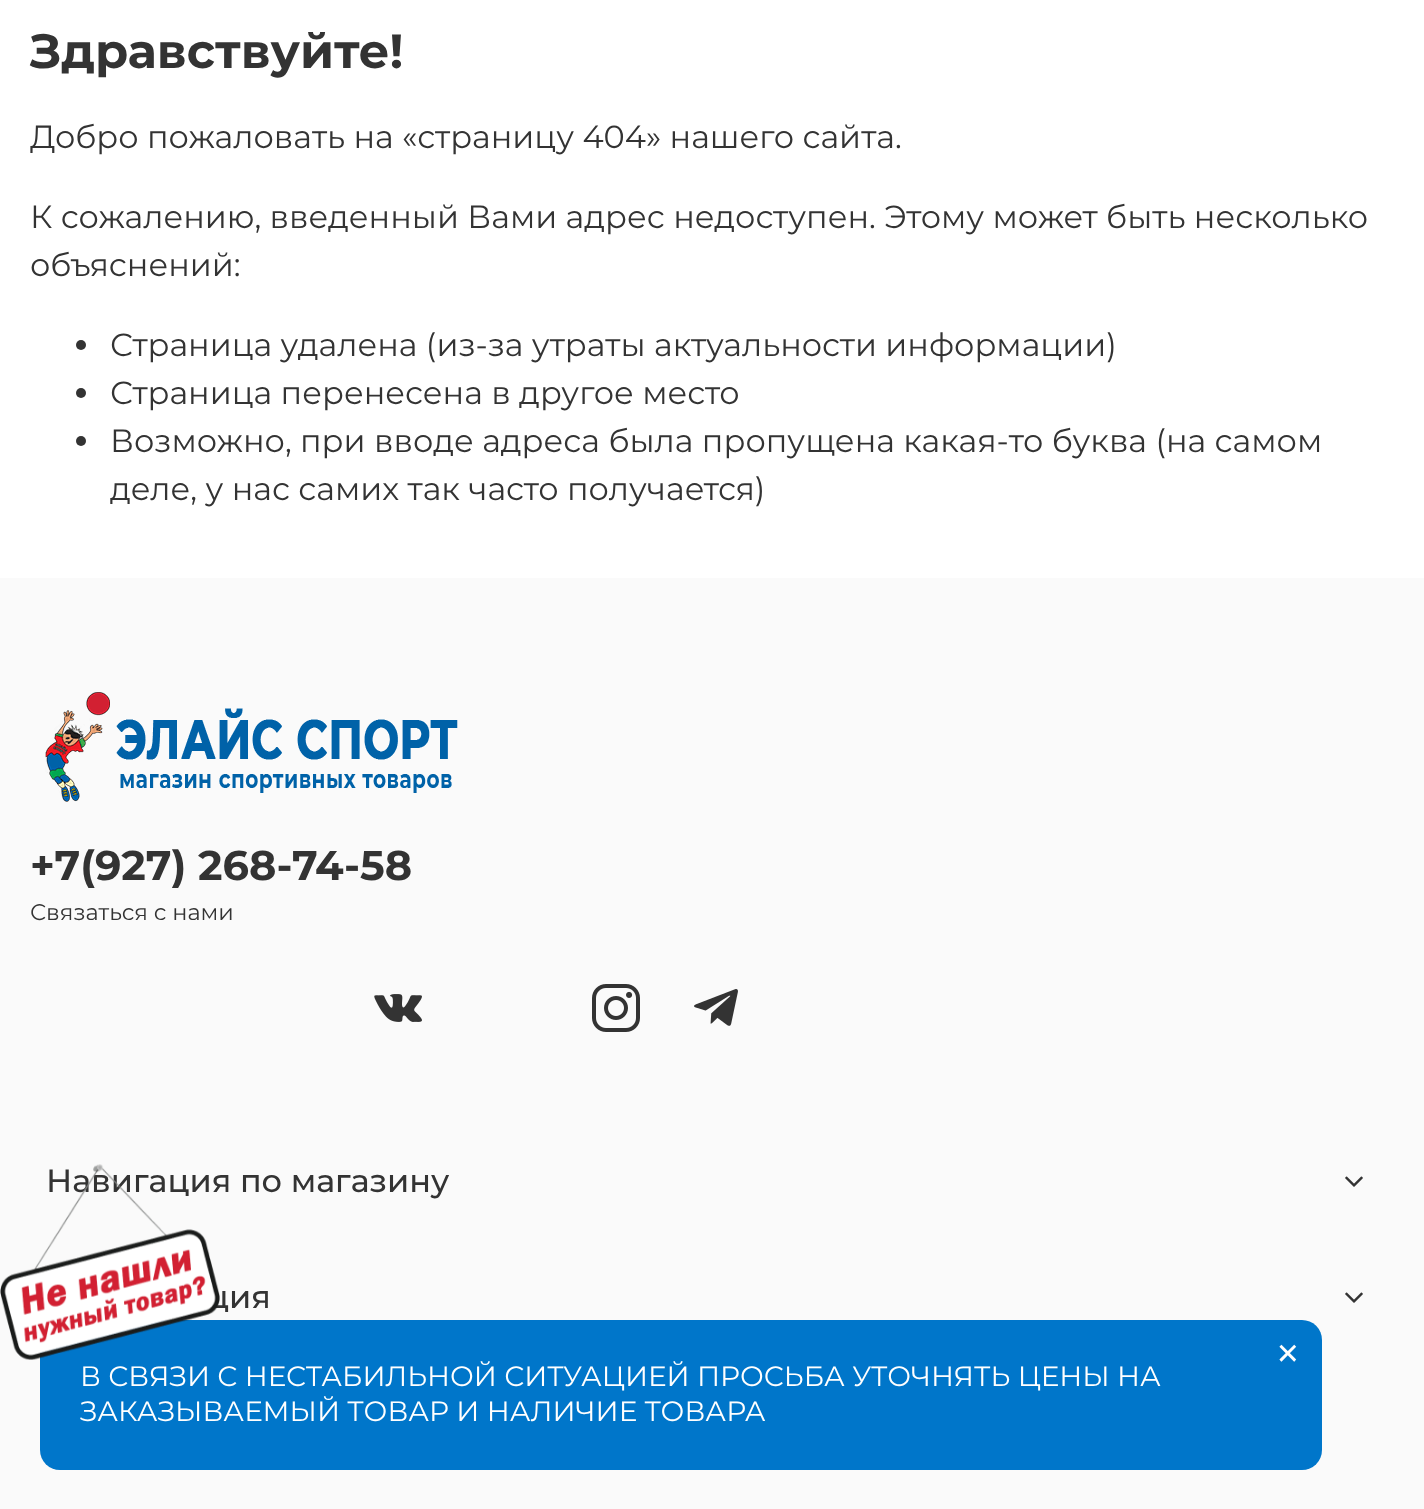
<?xml version="1.0" encoding="UTF-8"?>
<svg xmlns="http://www.w3.org/2000/svg" xmlns:xlink="http://www.w3.org/1999/xlink" width="1424" height="1509">
  <rect width="100%" height="100%" fill="#ffffff" />
  <circle cx="81" cy="345" r="5" fill="#333333" />
  <circle cx="81" cy="393" r="5" fill="#333333" />
  <circle cx="81" cy="441" r="5" fill="#333333" />
  <rect y="578" width="1424" height="931" fill="#fafafa" />
  <image x="45" y="692" width="413" height="110" xlink:href="image1.png" />
  <image x="374" y="994" width="48" height="28" xlink:href="image2.png" />
  <image x="592" y="984" width="48" height="48" xlink:href="image3.png" />
  <image x="694" y="989" width="44" height="37" xlink:href="image4.png" />
  <image x="1345" y="1176" width="18" height="11" xlink:href="image5.png" />
  <image x="1345" y="1292" width="18" height="11" xlink:href="image5.png" />
  <rect x="40" y="1320" width="1282" height="150" rx="20" fill="#0076ca" />
  <text x="30" y="68" style="font-family: Montserrat; font-size: 48px; font-weight: bold; fill: #333333">Здравствуйте!</text>
  <text x="30" y="148" style="font-family: Montserrat; font-size: 32px; fill: #333333">Добро пожаловать на «страницу 404» нашего сайта.</text>
  <text x="30" y="228" style="font-family: Montserrat; font-size: 32px; fill: #333333">К сожалению, введенный Вами адрес недоступен. Этому может быть несколько</text>
  <text x="30" y="276" style="font-family: Montserrat; font-size: 32px; fill: #333333">объяснений:</text>
  <text x="110" y="356" style="font-family: Montserrat; font-size: 32px; fill: #333333">Страница удалена (из-за утраты актуальности информации)</text>
  <text x="110" y="404" style="font-family: Montserrat; font-size: 32px; fill: #333333">Страница перенесена в другое место</text>
  <text x="110" y="452" style="font-family: Montserrat; font-size: 32px; fill: #333333">Возможно, при вводе адреса была пропущена какая-то буква (на самом</text>
  <text x="110" y="500" style="font-family: Montserrat; font-size: 32px; fill: #333333">деле, у нас самих так часто получается)</text>
  <text x="30" y="880" style="font-family: Montserrat; font-size: 41.5px; font-weight: bold; fill: #333333">+7(927) 268-74-58</text>
  <text x="30" y="920" style="font-family: Montserrat; font-size: 22.5px; fill: #333333">Связаться с нами</text>
  <text x="46" y="1192" style="font-family: Montserrat; font-size: 32px; font-weight: 500; fill: #333333">Навигация по магазину</text>
  <text x="207" y="1308" style="font-family: Montserrat; font-size: 32px; font-weight: 500; fill: #333333">ция</text>
  <image x="0" y="1164" width="220" height="196" xlink:href="image6.png" />
  <text x="1274" y="1370" style="font-family: Montserrat; font-size: 48px; fill: #ffffff">×</text>
  <text x="80" y="1386" style="font-family: Montserrat; font-size: 28px; fill: #ffffff">В СВЯЗИ С НЕСТАБИЛЬНОЙ СИТУАЦИЕЙ ПРОСЬБА УТОЧНЯТЬ ЦЕНЫ НА</text>
  <text x="80" y="1421" style="font-family: Montserrat; font-size: 28px; fill: #ffffff">ЗАКАЗЫВАЕМЫЙ ТОВАР И НАЛИЧИЕ ТОВАРА</text>
</svg>
